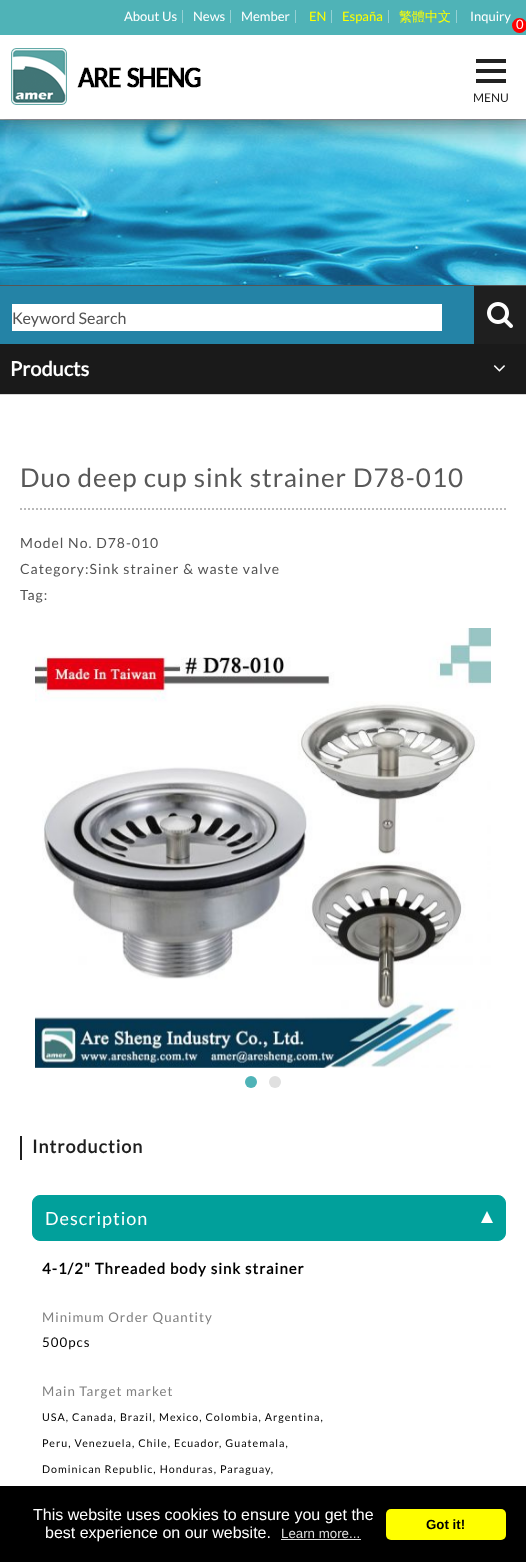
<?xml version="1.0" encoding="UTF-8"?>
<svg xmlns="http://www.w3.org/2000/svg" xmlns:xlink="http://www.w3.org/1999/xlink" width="526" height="1562">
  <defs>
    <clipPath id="clip1"><rect x="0" y="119" width="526" height="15" /></clipPath>
  </defs>
  <rect width="100%" height="100%" fill="#ffffff" />
  <image x="0" y="119" width="526" height="166" xlink:href="image2.png" />
  <g clip-path="url(#clip1)">
    <rect width="526" height="119" fill="#000000" fill-opacity="0.3" filter="blur(10px)" />
  </g>
  <rect width="526" height="35" fill="#4fb3b7" />
  <rect x="182" y="10" width="1" height="13" fill="#95d1d4" />
  <rect x="230" y="10" width="1" height="13" fill="#95d1d4" />
  <rect x="295" y="10" width="1" height="13" fill="#95d1d4" />
  <rect x="331" y="10" width="1" height="13" fill="#95d1d4" />
  <rect x="388" y="10" width="1" height="13" fill="#95d1d4" />
  <rect x="456" y="10" width="1" height="13" fill="#95d1d4" />
  <circle cx="519.5" cy="25.5" r="7.5" fill="#ff0000" />
  <image x="11" y="48" width="190" height="57" xlink:href="image1.png" />
  <rect x="476" y="59" width="30" height="4" fill="#222222" />
  <rect x="476" y="69" width="30" height="4" fill="#222222" />
  <rect x="476" y="79" width="30" height="4" fill="#222222" />
  <rect y="285" width="526" height="1" fill="#555555" />
  <rect y="286" width="474" height="58" fill="#2483a6" />
  <rect x="12" y="304" width="430" height="27" fill="#ffffff" />
  <rect x="474" y="286" width="52" height="58" fill="#1f1f1f" />
  <image x="487" y="302" width="26" height="26" xlink:href="image3.png" />
  <rect y="394" width="526" height="1" fill="#d6d6d6" />
  <rect y="344" width="526" height="50" fill="#1a1a1a" />
  <image x="493" y="365" width="12" height="7" xlink:href="image4.png" />
  <path d="M 20 509 h 486" fill="none" stroke="#b9b9b9" stroke-width="2" stroke-dasharray="2 2" />
  <image x="35" y="628" width="456" height="440" xlink:href="image5.png" />
  <circle cx="251" cy="1082" r="6" fill="#4fb3b7" />
  <circle cx="275" cy="1082" r="6" fill="#e0e0e0" />
  <rect x="20" y="1136" width="2" height="24" fill="#1f1f1f" />
  <rect x="32.5" y="1195.5" width="473" height="45" rx="7.5" fill="#01a09b" stroke="#01a09b" />
  <path d="M 493 1223 h -12 l 6 -12 z" fill="#ffffff" />
  <rect y="1486" width="526" height="76" fill="#000000" />
  <rect x="281" y="1539" width="80" height="1" fill="#dddddd" />
  <rect x="386" y="1509" width="120" height="31" rx="5" fill="#ffff00" />
  <text x="124" y="21" style="font-family: Lato; font-size: 13px; fill: #ffffff">About Us</text>
  <text x="193" y="21" style="font-family: Lato; font-size: 13px; fill: #ffffff">News</text>
  <text x="241" y="21" style="font-family: Lato; font-size: 13px; fill: #ffffff">Member</text>
  <text x="309" y="21" style="font-family: Lato; font-size: 13px; fill: #fcff00">EN</text>
  <text x="342" y="21" style="font-family: Lato; font-size: 13px; fill: #fcff00">España</text>
  <text x="399" y="21" style="font-family: WenQuanYi Zen Hei; font-size: 13px; font-weight: 500; fill: #fcff00">繁體中文</text>
  <text x="470" y="21" style="font-family: Lato; font-size: 13px; fill: #ffffff">Inquiry</text>
  <text x="516" y="29" style="font-family: Lato; font-size: 13px; fill: #ffffff">0</text>
  <text x="473" y="102" style="font-family: Lato; font-size: 12px; fill: #1f1f1f">MENU</text>
  <text x="12" y="324" style="font-family: Lato; font-size: 16px; fill: #525252">Keyword Search</text>
  <text x="10" y="376" style="font-family: Lato; font-size: 20px; font-weight: bold; fill: #ffffff">Products</text>
  <text x="20" y="487" style="font-family: Lato; font-size: 26px; letter-spacing: 1px; fill: #585858">Duo deep cup sink strainer D78-010</text>
  <text x="20" y="548" style="font-family: Lato; font-size: 14px; letter-spacing: 1px; fill: #525252">Model No. D78-010</text>
  <text x="20" y="574" style="font-family: Lato; font-size: 14px; letter-spacing: 1px; fill: #525252">Category:Sink strainer &amp; waste valve</text>
  <text x="20" y="600" style="font-family: Lato; font-size: 14px; letter-spacing: 1px; fill: #525252">Tag:</text>
  <text x="32" y="1153" style="font-family: Lato; font-size: 18px; font-weight: bold; letter-spacing: 1px; fill: #1f1f1f">Introduction</text>
  <text x="45" y="1225" style="font-family: Lato; font-size: 18px; letter-spacing: 1px; fill: #ffffff">Description</text>
  <text x="42" y="1274" style="font-family: Lato; font-size: 15px; font-weight: bold; letter-spacing: 1px; fill: #000000">4-1/2" Threaded body sink strainer</text>
  <text x="42" y="1322" style="font-family: Lato; font-size: 13.3px; letter-spacing: 1px; fill: #808080">Minimum Order Quantity</text>
  <text x="42" y="1347" style="font-family: Lato; font-size: 13.3px; letter-spacing: 1px; fill: #000000">500pcs</text>
  <text x="42" y="1396" style="font-family: Lato; font-size: 13.3px; letter-spacing: 1px; fill: #808080">Main Target market</text>
  <text x="42" y="1421" style="font-family: Lato; font-size: 10.7px; letter-spacing: 1px; fill: #000000">USA, Canada, Brazil, Mexico, Colombia, Argentina,</text>
  <text x="42" y="1447" style="font-family: Lato; font-size: 10.7px; letter-spacing: 1px; fill: #000000">Peru, Venezuela, Chile, Ecuador, Guatemala,</text>
  <text x="42" y="1473" style="font-family: Lato; font-size: 10.7px; letter-spacing: 1px; fill: #000000">Dominican Republic, Honduras, Paraguay,</text>
  <text x="33" y="1520" style="font-family: Liberation Sans; font-size: 16px; fill: #ffffff">This website uses cookies to ensure you get the</text>
  <text x="45" y="1538" style="font-family: Liberation Sans; font-size: 16px; fill: #ffffff">best experience on our website.</text>
  <text x="281" y="1538" style="font-family: Liberation Sans; font-size: 13.3px; fill: #dddddd">Learn more...</text>
  <text x="426" y="1529" style="font-family: Liberation Sans; font-size: 13.3px; font-weight: bold; fill: #000000">Got it!</text>
</svg>
